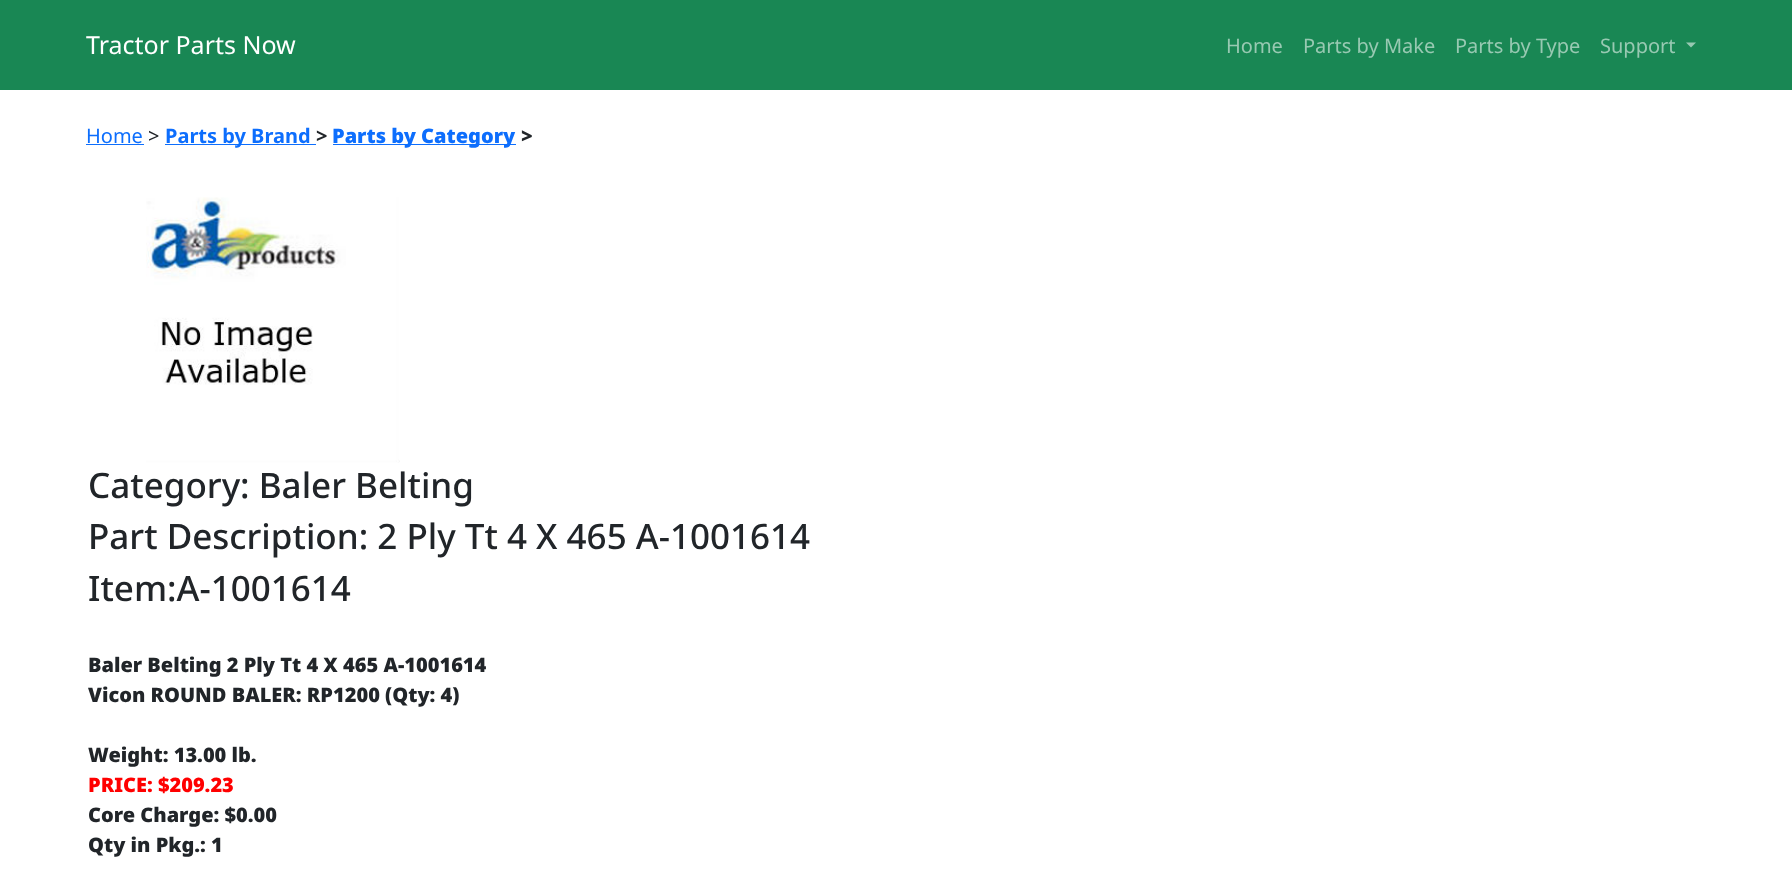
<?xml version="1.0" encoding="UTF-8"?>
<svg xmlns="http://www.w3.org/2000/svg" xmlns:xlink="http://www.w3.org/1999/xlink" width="1792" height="878">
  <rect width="100%" height="100%" fill="#ffffff" />
  <rect width="1792" height="90" fill="#198754" />
  <path d="M 1686 42.5 h 10 l -5 5 z" fill="#98c9b2" />
  <rect x="333" y="144" width="183" height="1" fill="#0d6efd" />
  <image x="146" y="197" width="254" height="266" xlink:href="image1.png" />
  <rect x="165" y="144" width="151" height="1" fill="#0d6efd" />
  <rect x="86" y="144" width="58" height="1" fill="#0d6efd" />
  <text x="86" y="54" style="font-family: Noto Sans; font-size: 25px; fill: #ffffff">Tractor Parts Now</text>
  <text x="1226" y="53" style="font-family: Noto Sans; font-size: 20px; fill: #98c9b2">Home</text>
  <text x="1303" y="53" style="font-family: Noto Sans; font-size: 20px; fill: #98c9b2">Parts by Make</text>
  <text x="1455" y="53" style="font-family: Noto Sans; font-size: 20px; fill: #98c9b2">Parts by Type</text>
  <text x="1600" y="53" style="font-family: Noto Sans; font-size: 20px; fill: #98c9b2">Support</text>
  <text x="332" y="143" style="font-family: Noto Sans; font-size: 20px; font-weight: 900; fill: #0d6efd">Parts by Category</text>
  <text x="521" y="143" style="font-family: Noto Sans; font-size: 20px; font-weight: 900; fill: #212529">&gt;</text>
  <text x="88" y="498" style="font-family: Noto Sans; font-size: 35px; font-weight: 500; fill: #212529">Category: Baler Belting</text>
  <text x="88" y="549" style="font-family: Noto Sans; font-size: 35px; font-weight: 500; fill: #212529">Part Description: 2 Ply Tt 4 X 465 A-1001614</text>
  <text x="88" y="601" style="font-family: Noto Sans; font-size: 35px; font-weight: 500; fill: #212529">Item:A-1001614</text>
  <text x="88" y="672" style="font-family: Noto Sans; font-size: 20px; font-weight: 900; fill: #212529">Baler Belting 2 Ply Tt 4 X 465 A-1001614</text>
  <text x="88" y="702" style="font-family: Noto Sans; font-size: 20px; font-weight: 900; fill: #212529">Vicon ROUND BALER: RP1200 (Qty: 4)</text>
  <text x="88" y="762" style="font-family: Noto Sans; font-size: 20px; font-weight: 900; fill: #212529">Weight: 13.00 lb.</text>
  <text x="88" y="792" style="font-family: Noto Sans; font-size: 20px; font-weight: 900; fill: #ff0000">PRICE: $209.23</text>
  <text x="88" y="822" style="font-family: Noto Sans; font-size: 20px; font-weight: 900; fill: #212529">Core Charge: $0.00</text>
  <text x="88" y="852" style="font-family: Noto Sans; font-size: 20px; font-weight: 900; fill: #212529">Qty in Pkg.: 1</text>
  <text x="165" y="143" style="font-family: Noto Sans; font-size: 20px; font-weight: bold; fill: #0d6efd">Parts by Brand</text>
  <text x="316" y="143" style="font-family: Noto Sans; font-size: 20px; font-weight: bold; fill: #212529">&gt;</text>
  <text x="86" y="143" style="font-family: Noto Sans; font-size: 20px; fill: #0d6efd">Home</text>
  <text x="148" y="143" style="font-family: Noto Sans; font-size: 20px; fill: #212529">&gt;</text>
</svg>
